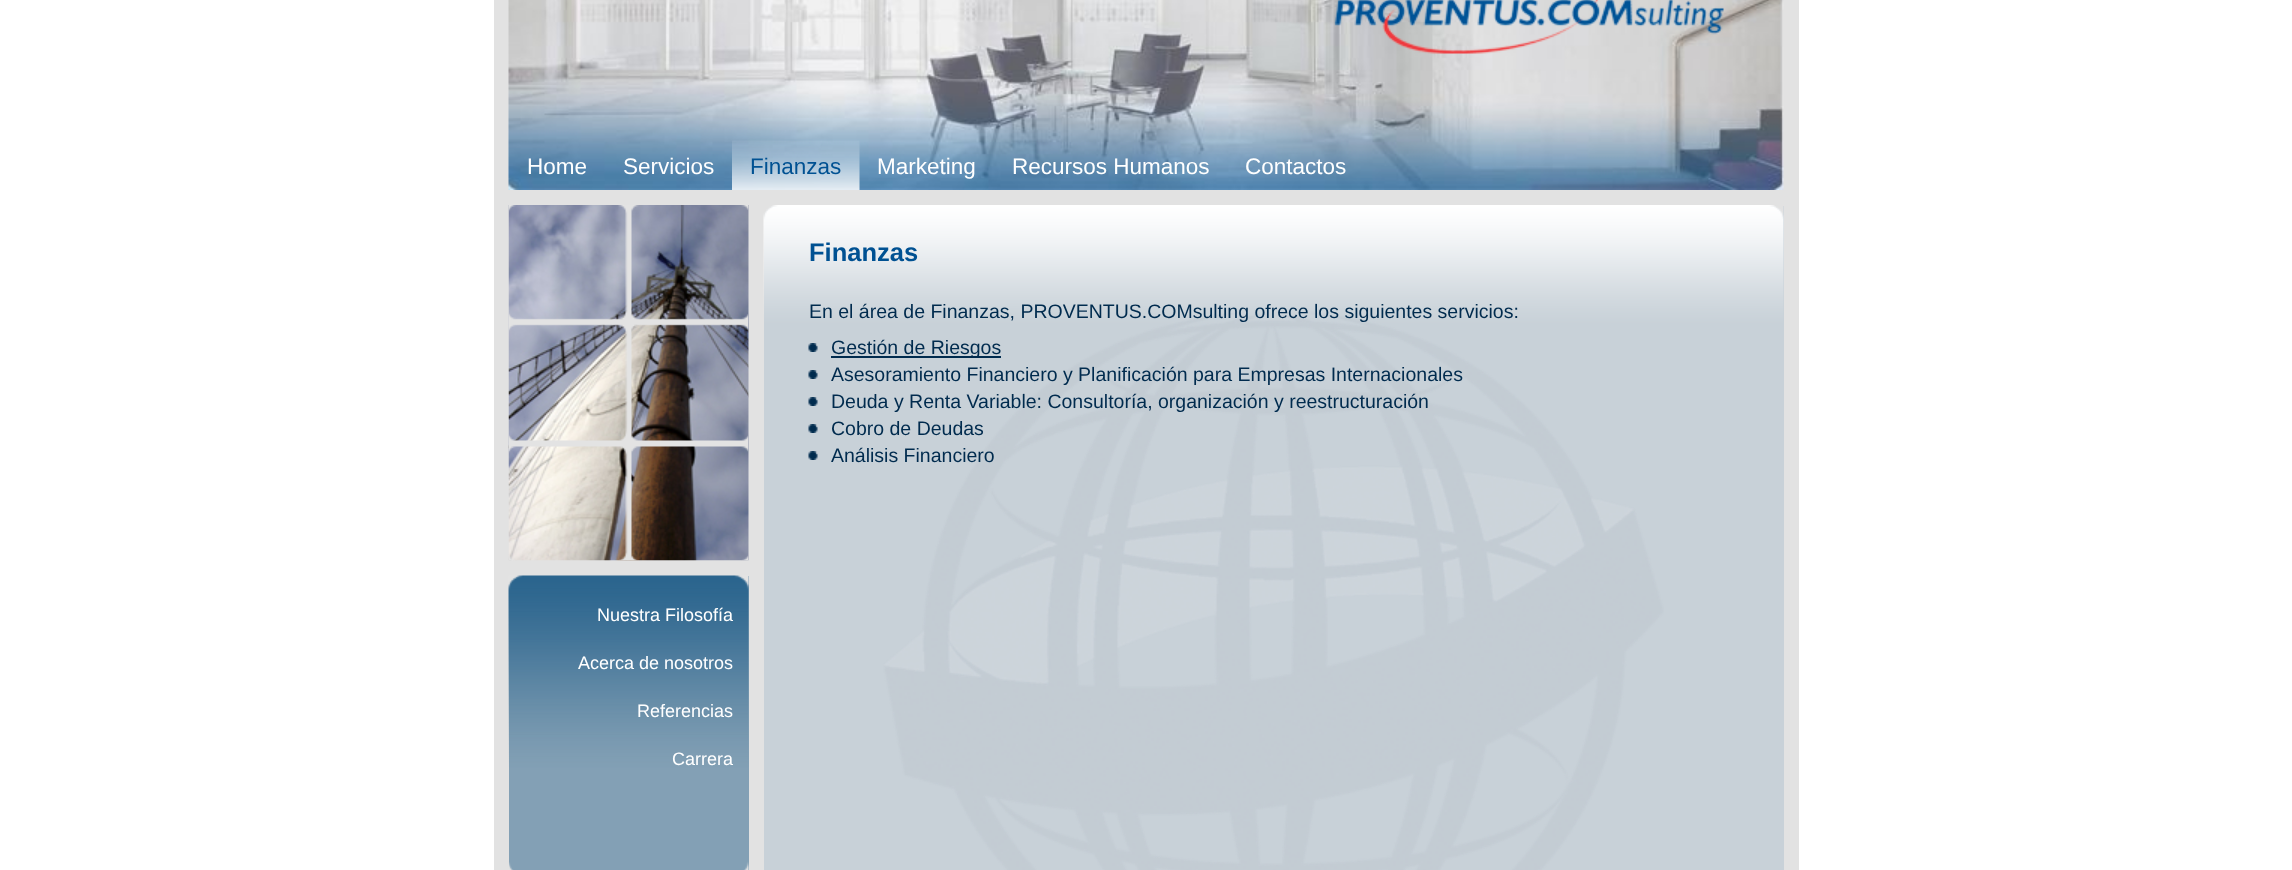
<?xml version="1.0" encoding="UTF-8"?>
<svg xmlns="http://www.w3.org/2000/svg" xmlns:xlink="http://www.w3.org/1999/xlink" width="2292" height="870">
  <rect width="100%" height="100%" fill="#ffffff" />
  <rect x="494" width="1305" height="870" fill="#e2e2e2" />
  <image x="508" y="0" width="1276" height="190" xlink:href="image1.png" />
  <image x="1334" y="0" width="390" height="54" xlink:href="image2.png" />
  <image x="732" y="140" width="128" height="50" xlink:href="image3.png" />
  <rect x="764" y="206" width="1020" height="664" fill="#c8d1d8" />
  <image x="763" y="205" width="1021" height="665" xlink:href="image4.png" />
  <image x="808" y="343" width="10" height="9" xlink:href="image5.png" />
  <rect x="831" y="356" width="170" height="2" fill="#002b4e" />
  <image x="808" y="370" width="10" height="9" xlink:href="image5.png" />
  <image x="808" y="397" width="10" height="9" xlink:href="image5.png" />
  <image x="808" y="424" width="10" height="9" xlink:href="image5.png" />
  <image x="808" y="451" width="10" height="9" xlink:href="image5.png" />
  <image x="508" y="205" width="241" height="356" xlink:href="image6.png" />
  <image x="508" y="205" width="241" height="356" xlink:href="image7.png" />
  <rect x="509" y="576" width="240" height="294" fill="#83a0b5" />
  <image x="508" y="575" width="241" height="295" xlink:href="image8.png" />
  <text x="527" y="174" style="font-family: Liberation Sans; font-size: 22.5px; fill: #ffffff">Home</text>
  <text x="623" y="174" style="font-family: Liberation Sans; font-size: 22.5px; fill: #ffffff">Servicios</text>
  <text x="750" y="174" style="font-family: Liberation Sans; font-size: 22.5px; fill: #005192">Finanzas</text>
  <text x="877" y="174" style="font-family: Liberation Sans; font-size: 22.5px; fill: #ffffff">Marketing</text>
  <text x="1012" y="174" style="font-family: Liberation Sans; font-size: 22.5px; fill: #ffffff">Recursos Humanos</text>
  <text x="1245" y="174" style="font-family: Liberation Sans; font-size: 22.5px; fill: #ffffff">Contactos</text>
  <text x="809" y="261" style="font-family: Liberation Sans; font-size: 25.5px; font-weight: bold; fill: #005192">Finanzas</text>
  <text x="809" y="318" style="font-family: Liberation Sans; font-size: 19.5px; fill: #002b4e">En el área de Finanzas, PROVENTUS.COMsulting ofrece los siguientes servicios:</text>
  <text x="831" y="354" style="font-family: Liberation Sans; font-size: 19.5px; fill: #002b4e">Gestión de Riesgos</text>
  <text x="831" y="381" style="font-family: Liberation Sans; font-size: 19.5px; fill: #002b4e">Asesoramiento Financiero y Planificación para Empresas Internacionales</text>
  <text x="831" y="408" style="font-family: Liberation Sans; font-size: 19.5px; fill: #002b4e">Deuda y Renta Variable: Consultoría, organización y reestructuración</text>
  <text x="831" y="435" style="font-family: Liberation Sans; font-size: 19.5px; fill: #002b4e">Cobro de Deudas</text>
  <text x="831" y="462" style="font-family: Liberation Sans; font-size: 19.5px; fill: #002b4e">Análisis Financiero</text>
  <text x="597" y="621" style="font-family: Liberation Sans; font-size: 18px; fill: #ffffff">Nuestra Filosofía</text>
  <text x="578" y="669" style="font-family: Liberation Sans; font-size: 18px; fill: #ffffff">Acerca de nosotros</text>
  <text x="637" y="717" style="font-family: Liberation Sans; font-size: 18px; fill: #ffffff">Referencias</text>
  <text x="672" y="765" style="font-family: Liberation Sans; font-size: 18px; fill: #ffffff">Carrera</text>
</svg>
